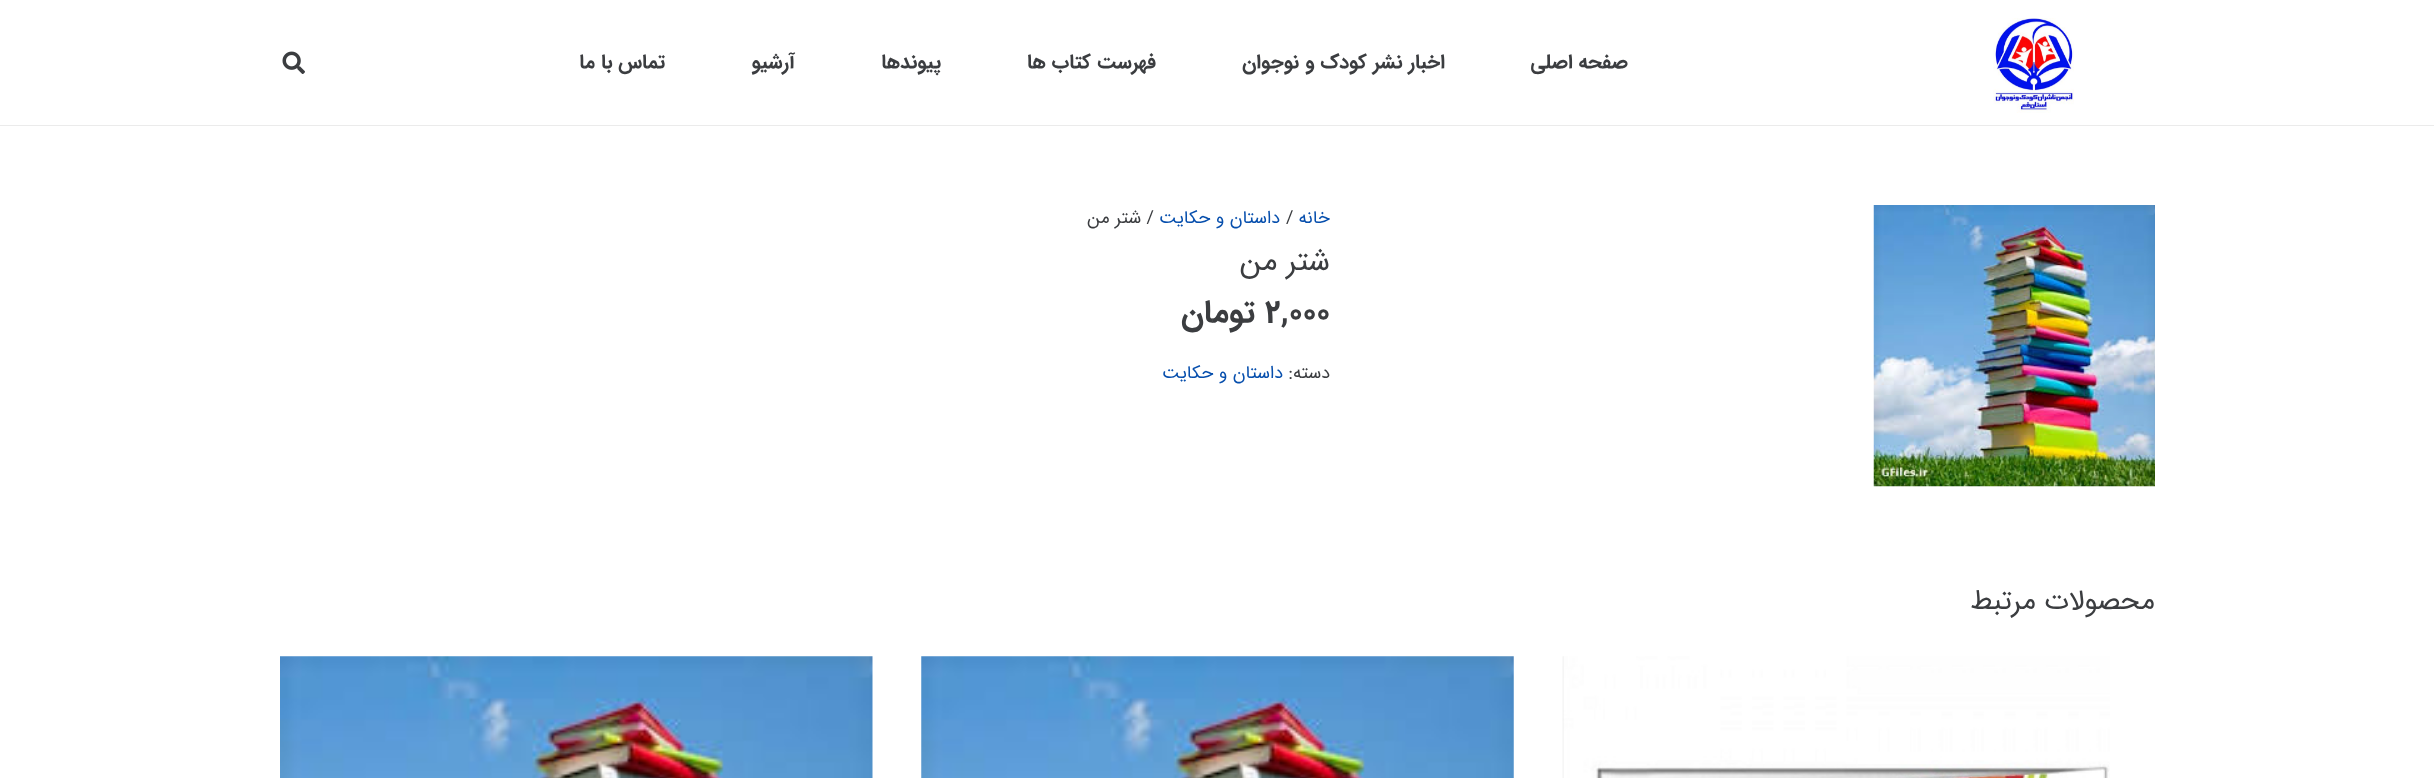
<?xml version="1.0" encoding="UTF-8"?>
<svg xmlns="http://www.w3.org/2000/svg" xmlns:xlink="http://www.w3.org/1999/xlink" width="2434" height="778">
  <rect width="100%" height="100%" fill="#ffffff" />
  <rect y="125" width="2434" height="1" fill="#ebebeb" />
  <image x="1993" y="18" width="81" height="95" xlink:href="image1.png" />
  <image x="282" y="51" width="23" height="23" xlink:href="image2.png" />
  <image x="1873" y="205" width="282" height="282" xlink:href="image3.png" />
  <image x="1562" y="656" width="548" height="122" xlink:href="image4.png" />
  <image x="921" y="656" width="593" height="122" xlink:href="image5.png" />
  <image x="280" y="656" width="593" height="122" xlink:href="image6.png" />
  <text x="1628" y="68" style="font-family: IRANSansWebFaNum; font-size: 20px; font-weight: bold; direction: rtl; fill: #3b3d40">صفحه اصلی</text>
  <text x="1445" y="68" style="font-family: IRANSansWebFaNum; font-size: 20px; font-weight: bold; direction: rtl; fill: #3b3d40">اخبار نشر کودک و نوجوان</text>
  <text x="1156" y="68" style="font-family: IRANSansWebFaNum; font-size: 20px; font-weight: bold; direction: rtl; fill: #3b3d40">فهرست</text>
  <text x="1091" y="68" style="font-family: IRANSansWebFaNum; font-size: 20px; font-weight: bold; direction: rtl; fill: #3b3d40">کتاب ها</text>
  <text x="941" y="68" style="font-family: IRANSansWebFaNum; font-size: 20px; font-weight: bold; direction: rtl; fill: #3b3d40">پیوندها</text>
  <text x="795" y="68" style="font-family: IRANSansWebFaNum; font-size: 20px; font-weight: bold; direction: rtl; fill: #3b3d40">آرشیو</text>
  <text x="665" y="68" style="font-family: IRANSansWebFaNum; font-size: 20px; font-weight: bold; direction: rtl; fill: #3b3d40">تماس با ما</text>
  <text x="1330" y="223" style="font-family: IRANSansWebFaNum; font-size: 18px; direction: rtl; fill: #074fad">خانه</text>
  <text x="1286" y="223" style="font-family: IRANSansWebFaNum; font-size: 18px; fill: #3b3d40">/</text>
  <text x="1280" y="223" style="font-family: IRANSansWebFaNum; font-size: 18px; direction: rtl; fill: #074fad">داستان و حکایت</text>
  <text x="1154" y="223" style="font-family: IRANSansWebFaNum; font-size: 18px; direction: rtl; fill: #3b3d40">/ شتر من</text>
  <text x="1330" y="270" style="font-family: IRANSansWebFaNum; font-size: 30px; direction: rtl; fill: #3b3d40">شتر من</text>
  <text x="1265" y="322" style="font-family: IRANSansWebFaNum; font-size: 32px; font-weight: bold; fill: #3b3d40">2,000</text>
  <text x="1255" y="322" style="font-family: IRANSansWebFaNum; font-size: 32px; font-weight: bold; direction: rtl; fill: #3b3d40">تومان</text>
  <text x="1330" y="378" style="font-family: IRANSansWebFaNum; font-size: 18px; direction: rtl; fill: #3b3d40">دسته:</text>
  <text x="1283" y="378" style="font-family: IRANSansWebFaNum; font-size: 18px; direction: rtl; fill: #074fad">داستان و حکایت</text>
  <text x="2155" y="609" style="font-family: IRANSansWebFaNum; font-size: 28px; direction: rtl; fill: #3b3d40">محصولات مرتبط</text>
</svg>
